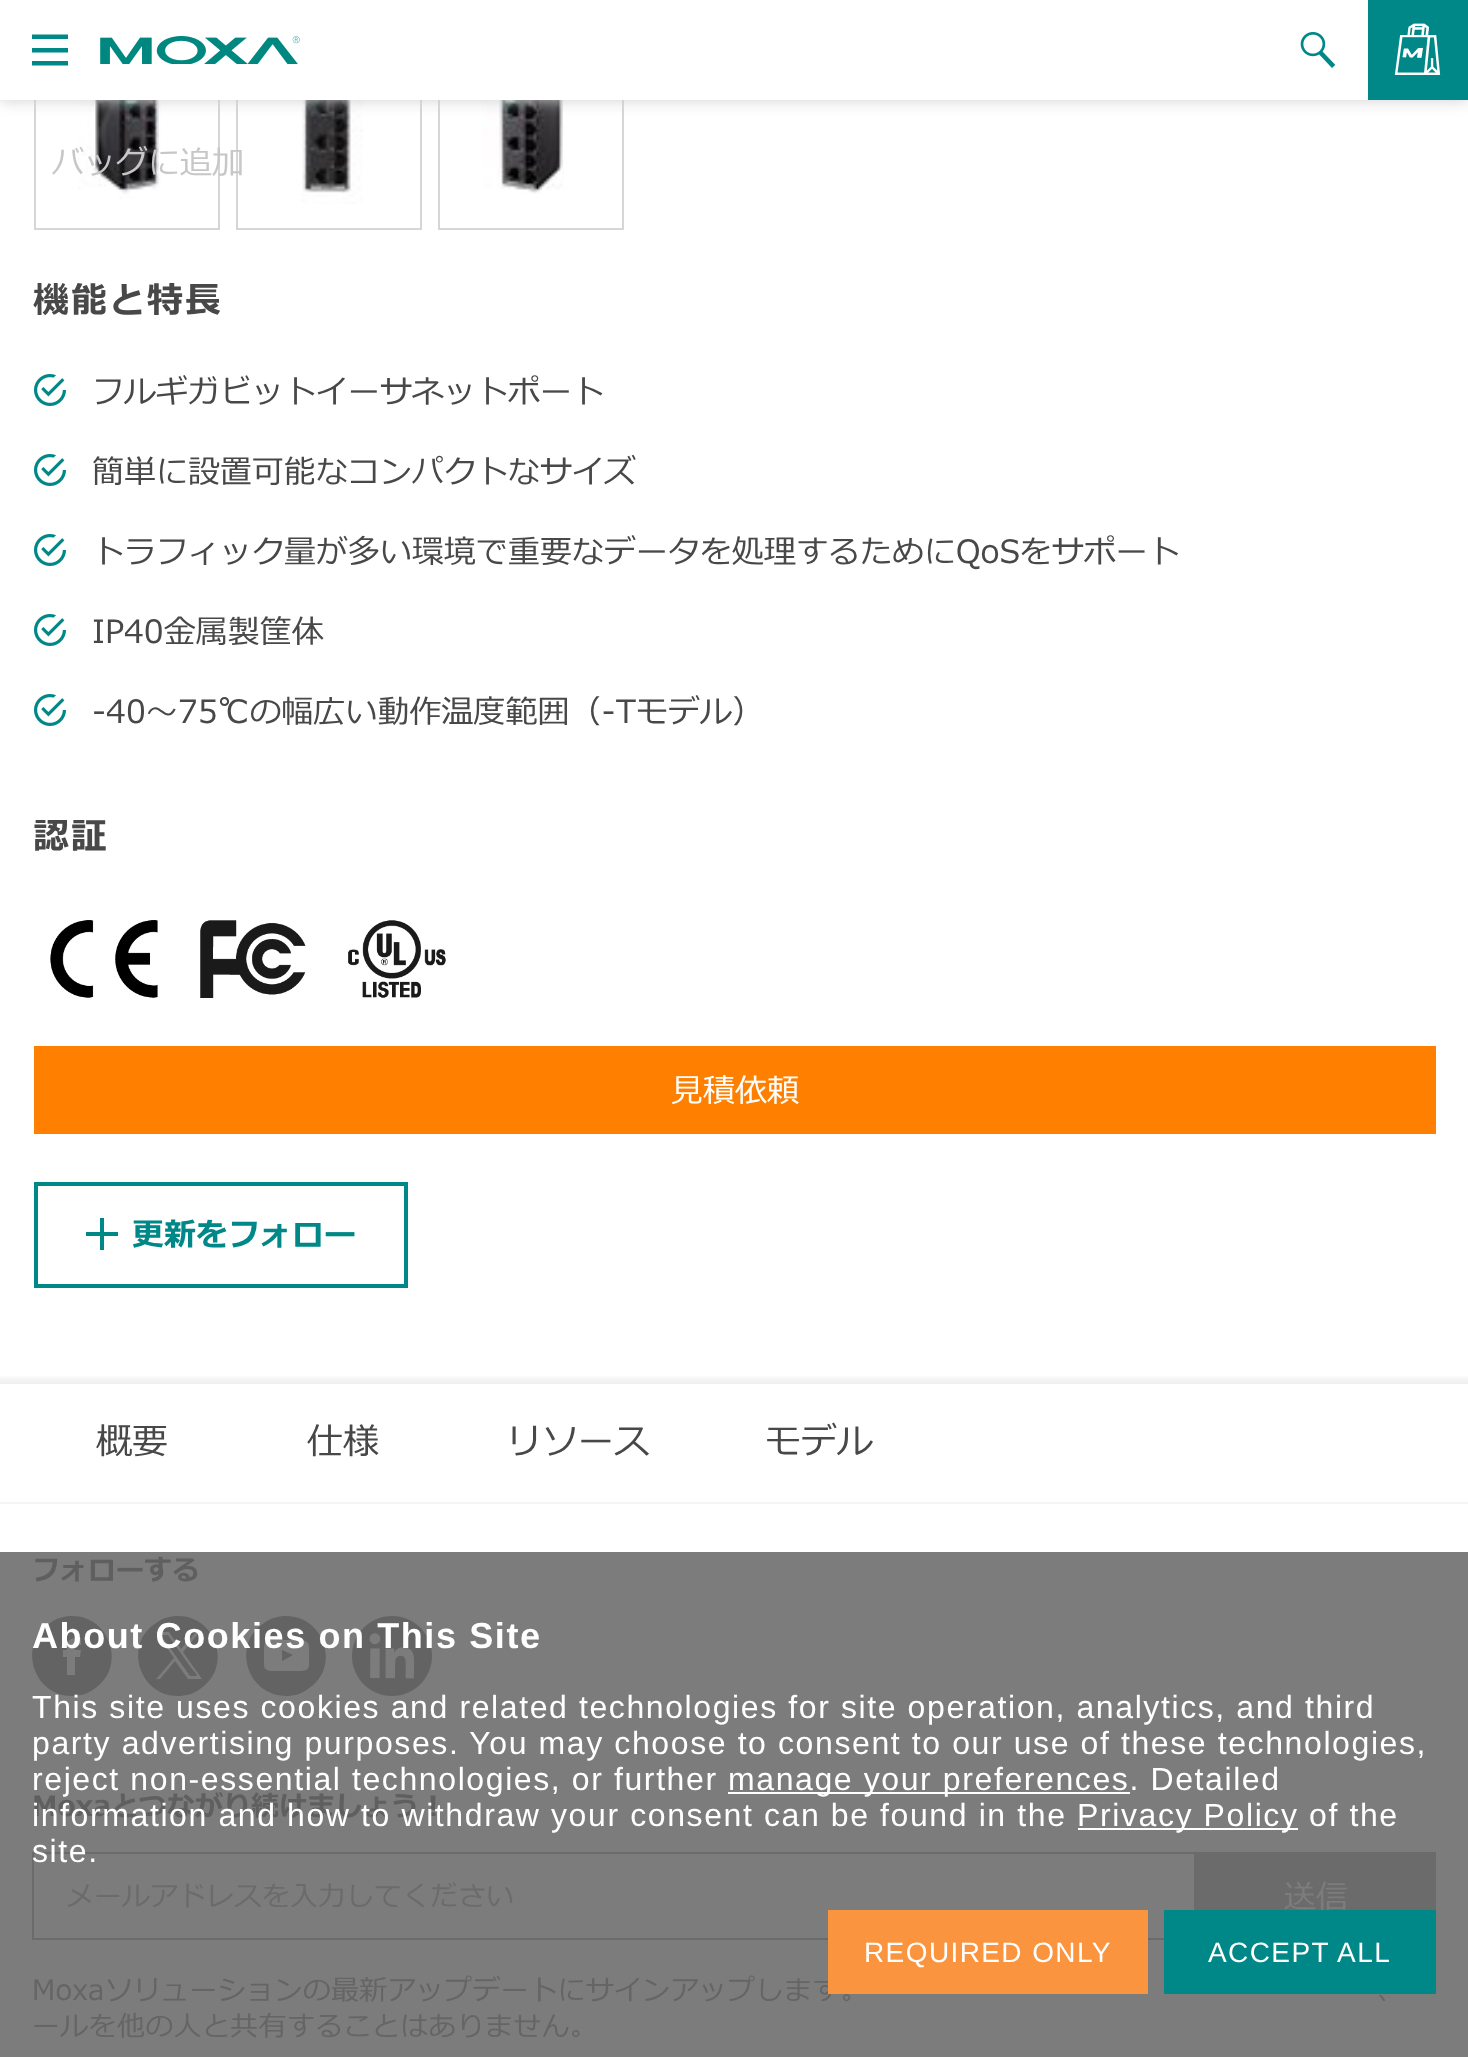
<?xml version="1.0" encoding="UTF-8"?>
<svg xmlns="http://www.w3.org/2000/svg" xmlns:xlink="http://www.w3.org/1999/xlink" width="1468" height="2057">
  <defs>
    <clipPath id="clip1"><rect x="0" y="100" width="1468" height="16" /></clipPath>
    <clipPath id="clip2"><rect x="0" y="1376" width="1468" height="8" /></clipPath>
  </defs>
  <rect width="100%" height="100%" fill="#ffffff" />
  <rect x="35" y="45" width="184" height="184" fill="none" stroke="#d6d6d6" stroke-width="2" />
  <rect x="237" y="45" width="184" height="184" fill="none" stroke="#d6d6d6" stroke-width="2" />
  <rect x="439" y="45" width="184" height="184" fill="none" stroke="#d6d6d6" stroke-width="2" />
  <rect x="34" y="44" width="590" height="56" fill="#ffffff" />
  <image x="78" y="100" width="83" height="99" xlink:href="image4.png" />
  <image x="301" y="100" width="62" height="104" xlink:href="image5.png" />
  <image x="482" y="100" width="82" height="94" xlink:href="image6.png" />
  <g clip-path="url(#clip1)">
    <rect width="1468" height="100" fill="#cecece" filter="blur(8px)" />
  </g>
  <path d="M 32 39 v -4.5 h 36 v 4.5 z m 0 13.5 v -4.5 h 36 v 4.5 z m 0 13 v -4.5 h 36 v 4.5 z" fill="#008787" />
  <image x="100" y="36" width="200" height="28" xlink:href="image1.png" />
  <image x="1300" y="32" width="36" height="36" xlink:href="image2.png" />
  <rect x="1368" width="100" height="100" fill="#008787" />
  <image x="1394" y="23" width="47" height="52" xlink:href="image3.png" />
  <image x="34" y="374" width="32" height="32" xlink:href="image7.png" />
  <image x="34" y="454" width="32" height="32" xlink:href="image7.png" />
  <image x="34" y="534" width="32" height="32" xlink:href="image7.png" />
  <image x="34" y="614" width="32" height="32" xlink:href="image7.png" />
  <image x="34" y="694" width="32" height="32" xlink:href="image7.png" />
  <image x="50" y="920" width="108" height="78" xlink:href="image8.png" />
  <image x="200" y="920" width="106" height="78" xlink:href="image9.png" />
  <image x="348" y="920" width="98" height="78" xlink:href="image10.png" />
  <rect x="34" y="1046" width="1402" height="88" fill="#ff8000" />
  <rect x="36" y="1184" width="370" height="102" fill="none" stroke="#008787" stroke-width="4" />
  <image x="86" y="1218" width="32" height="32" xlink:href="image11.png" />
  <g clip-path="url(#clip2)">
    <rect x="-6" y="1378" width="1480" height="130" fill="#202020" fill-opacity="0.07" filter="blur(3px)" />
  </g>
  <rect y="1504" width="1468" height="7" fill="#ffffff" />
  <rect y="1552" width="1468" height="505" fill="#7c7c7c" />
  <rect y="1502" width="1468" height="2" fill="#f4f4f4" />
  <path d="M 72 1616 c -8 0 -15 2 -22 7 c -33 21 -17 73 22 73 c 8 0 15 -2 22 -7 c 33 -21 17 -73 -22 -73 z m 3 59 h -8 v -18 h -4 v -7 h 4 c 0 -11 2 -12 14 -12 v 7 c -7 0 -6 -1 -6 5 h 6 l -1 7 h -5 z" fill="#636363" />
  <path d="M 178 1616 c -8 0 -15 2 -22 7 c -33 21 -17 73 22 73 c 8 0 15 -2 22 -7 c 33 -21 17 -73 -22 -73 z m -3 25 l 6 8 l 15 -17 h 4 l -17 20 l 19 27 h -14 l -13 -18 l -15 18 c -4 0 -5 1 -2 -2 l 16 -19 l -18 -26 h 13 z m -14 -6 l 29 41 c 12 0 7 1 -3 -14 l -19 -27 z" fill="#636363" />
  <path d="M 282 1661 l 11 -6 l -11 -5 z m 27 4 c 0 -26 4 -25 -23 -25 h -17 c -6 2 -5 9 -5 13 v 12 c 0 6 6 6 11 6 h 22 c 4 0 12 1 12 -6 z m -23 -49 c 39 0 55 52 22 73 c -7 5 -14 7 -22 7 c -39 0 -55 -52 -22 -73 c 7 -5 14 -7 22 -7 z" fill="#636363" />
  <image x="352" y="1616" width="80" height="80" xlink:href="image12.png" />
  <rect x="33" y="1853" width="1162" height="86" fill="none" stroke="#6b6b6b" stroke-width="2" />
  <rect x="1196" y="1852" width="240" height="58" fill="#6b6b6b" />
  <rect x="728" y="1792" width="402" height="2" fill="#ffffff" />
  <rect x="1078" y="1828" width="220" height="2" fill="#ffffff" />
  <text x="52" y="174" style="font-family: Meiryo; font-size: 32px; fill: #c7c7c7">バッグに追加</text>
  <text x="33" y="313" style="font-family: Meiryo; font-size: 36px; font-weight: bold; letter-spacing: 2px; fill: #484848">機能と特長</text>
  <text x="92" y="403" style="font-family: Meiryo; font-size: 32px; fill: #484848">フルギガビットイーサネットポート</text>
  <text x="92" y="483" style="font-family: Meiryo; font-size: 32px; fill: #484848">簡単に設置可能なコンパクトなサイズ</text>
  <text x="92" y="563" style="font-family: Meiryo; font-size: 32px; fill: #484848">トラフィック量が多い環境で重要なデータを処理するためにQoSをサポート</text>
  <text x="92" y="643" style="font-family: Meiryo; font-size: 32px; fill: #484848">IP40金属製筐体</text>
  <text x="92" y="723" style="font-family: Meiryo; font-size: 32px; fill: #484848">-40～75℃の幅広い動作温度範囲（-Tモデル）</text>
  <text x="33" y="849" style="font-family: Meiryo; font-size: 36px; font-weight: bold; letter-spacing: 2px; fill: #484848">認証</text>
  <text x="671" y="1102" style="font-family: Meiryo; font-size: 32px; fill: #ffffff">見積依頼</text>
  <text x="132" y="1246" style="font-family: Meiryo; font-size: 32px; font-weight: bold; fill: #008787">更新をフォロー</text>
  <text x="96" y="1454" style="font-family: Meiryo; font-size: 36px; fill: #484848">概要</text>
  <text x="307" y="1454" style="font-family: Meiryo; font-size: 36px; fill: #484848">仕様</text>
  <text x="506" y="1454" style="font-family: Meiryo; font-size: 36px; fill: #484848">リソース</text>
  <text x="765" y="1454" style="font-family: Meiryo; font-size: 36px; fill: #484848">モデル</text>
  <text x="32" y="1580" style="font-family: Meiryo; font-size: 28px; font-weight: bold; fill: #5f5f5f">フォローする</text>
  <text x="32" y="1816" style="font-family: Meiryo; font-size: 28px; font-weight: bold; fill: #5f5f5f">Moxaとつながり続けましょう！</text>
  <text x="66" y="1906" style="font-family: Meiryo; font-size: 28px; fill: #6b6b6b">メールアドレスを入力してください</text>
  <text x="1284" y="1908" style="font-family: Meiryo; font-size: 32px; fill: #7c7c7c">送信</text>
  <text x="32" y="2000" style="font-family: Meiryo; font-size: 28px; letter-spacing: 0.3px; fill: #656565">Moxaソリューションの最新アップデートにサインアップします。</text>
  <text x="1377" y="2000" style="font-family: Meiryo; font-size: 28px; letter-spacing: 0.3px; fill: #656565">、</text>
  <text x="32" y="2036" style="font-family: Meiryo; font-size: 28px; letter-spacing: 0.3px; fill: #656565">ールを他の人と共有することはありません。</text>
  <text x="32" y="1648" style="font-family: Liberation Sans; font-size: 36px; font-weight: bold; letter-spacing: 1.6px; fill: #ffffff">About Cookies on This Site</text>
  <text x="32" y="1718" style="font-family: Liberation Sans; font-size: 32px; letter-spacing: 1.6px; fill: #ffffff">This site uses cookies and related technologies for site operation, analytics, and third</text>
  <text x="32" y="1754" style="font-family: Liberation Sans; font-size: 32px; letter-spacing: 1.6px; fill: #ffffff">party advertising purposes. You may choose to consent to our use of these technologies,</text>
  <text x="32" y="1790" style="font-family: Liberation Sans; font-size: 32px; letter-spacing: 1.6px; fill: #ffffff">reject non-essential technologies, or further</text>
  <text x="728" y="1790" style="font-family: Liberation Sans; font-size: 32px; letter-spacing: 1.6px; fill: #ffffff">manage your preferences. Detailed</text>
  <text x="32" y="1826" style="font-family: Liberation Sans; font-size: 32px; letter-spacing: 1.6px; fill: #ffffff">information and how to withdraw your consent can be found in the</text>
  <text x="1077" y="1826" style="font-family: Liberation Sans; font-size: 32px; letter-spacing: 1.6px; fill: #ffffff">Privacy Policy of the</text>
  <text x="32" y="1862" style="font-family: Liberation Sans; font-size: 32px; letter-spacing: 1.6px; fill: #ffffff">site.</text>
  <rect x="828" y="1910" width="320" height="84" fill="#fa943e" />
  <text x="864" y="1962" style="font-family: Liberation Sans; font-size: 28px; letter-spacing: 1.4px; fill: #ffffff">REQUIRED ONLY</text>
  <rect x="1164" y="1910" width="272" height="84" fill="#008787" />
  <text x="1208" y="1962" style="font-family: Liberation Sans; font-size: 28px; letter-spacing: 1.4px; fill: #ffffff">ACCEPT ALL</text>
</svg>
